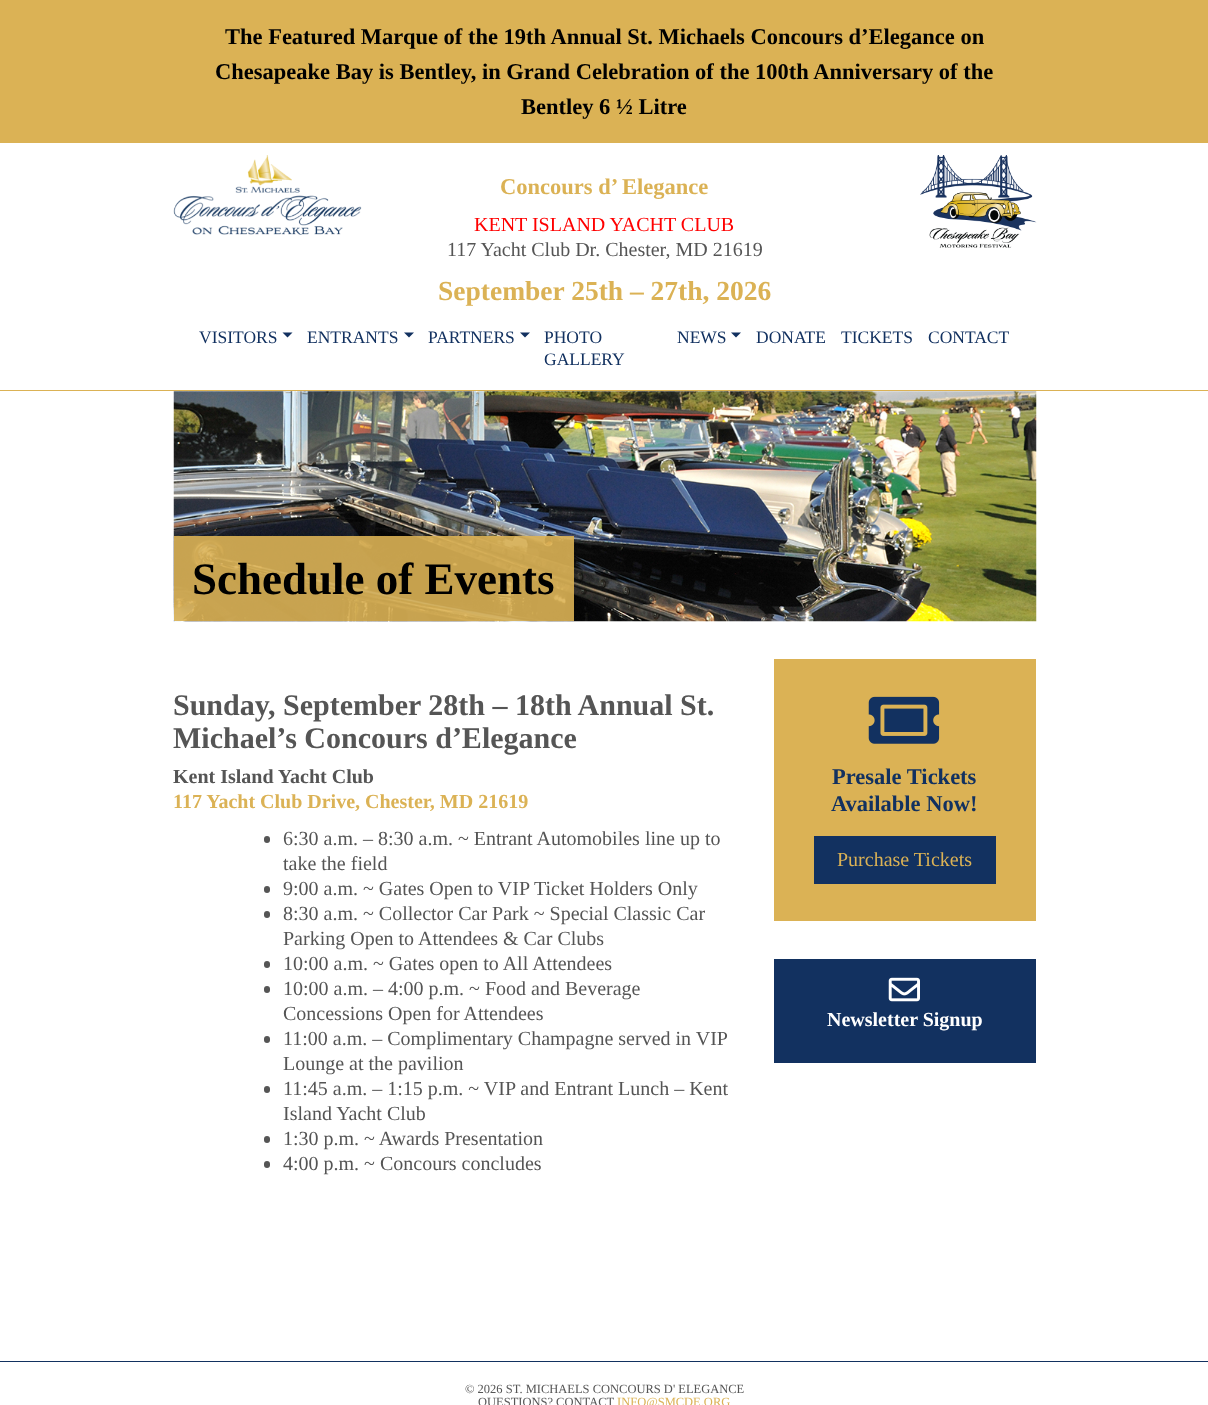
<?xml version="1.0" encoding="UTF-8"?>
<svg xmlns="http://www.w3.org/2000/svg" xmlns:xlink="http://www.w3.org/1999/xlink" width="1208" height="1405">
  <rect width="100%" height="100%" fill="#ffffff" />
  <rect width="1208" height="143" fill="#dbb255" />
  <rect y="390" width="1208" height="1" fill="#dbb255" />
  <image x="173" y="155" width="189" height="80" xlink:href="image1.png" />
  <image x="920" y="155" width="117" height="93" xlink:href="image2.png" />
  <path d="M 282.5 332.5 h 10 l -5 5 z" fill="#123160" />
  <path d="M 404 332.5 h 10 l -5 5 z" fill="#123160" />
  <path d="M 520 332.5 h 10 l -5 5 z" fill="#123160" />
  <path d="M 731 332.5 h 10 l -5 5 z" fill="#123160" />
  <image x="173" y="391" width="864" height="231" xlink:href="image3.png" />
  <rect x="174" y="536" width="400" height="85" fill="#dbb255" fill-opacity="0.9" />
  <rect x="264" y="836" width="6" height="7" rx="3" fill="#555555" />
  <rect x="264" y="886" width="6" height="7" rx="3" fill="#555555" />
  <rect x="264" y="911" width="6" height="7" rx="3" fill="#555555" />
  <rect x="264" y="961" width="6" height="7" rx="3" fill="#555555" />
  <rect x="264" y="986" width="6" height="7" rx="3" fill="#555555" />
  <rect x="264" y="1036" width="6" height="7" rx="3" fill="#555555" />
  <rect x="264" y="1086" width="6" height="7" rx="3" fill="#555555" />
  <rect x="264" y="1136" width="6" height="7" rx="3" fill="#555555" />
  <rect x="264" y="1161" width="6" height="7" rx="3" fill="#555555" />
  <rect x="774" y="659" width="262" height="262" fill="#dbb255" />
  <image x="868" y="696" width="72" height="48" xlink:href="image4.png" />
  <rect x="814" y="836" width="182" height="48" fill="#123160" />
  <rect x="774" y="959" width="262" height="104" fill="#123160" />
  <image x="888" y="977" width="32" height="25" xlink:href="image5.png" />
  <rect y="1361" width="1208" height="1" fill="#123160" />
  <text x="225" y="44" style="font-family: Liberation Serif; font-size: 22.5px; font-weight: bold; fill: #000000">The Featured Marque of the 19th Annual St. Michaels Concours d’Elegance on</text>
  <text x="215" y="79" style="font-family: Liberation Serif; font-size: 22.5px; font-weight: bold; fill: #000000">Chesapeake Bay is Bentley, in Grand Celebration of the 100th Anniversary of the</text>
  <text x="521" y="114" style="font-family: Liberation Serif; font-size: 22.5px; font-weight: bold; fill: #000000">Bentley 6 ½ Litre</text>
  <text x="500" y="194" style="font-family: Liberation Serif; font-size: 22.5px; font-weight: bold; fill: #dbb255">Concours d’ Elegance</text>
  <text x="474" y="231" style="font-family: Liberation Serif; font-size: 20px; fill: #ff0000">KENT ISLAND YACHT CLUB</text>
  <text x="447" y="256" style="font-family: Liberation Serif; font-size: 20px; fill: #555555">117 Yacht Club Dr. Chester, MD 21619</text>
  <text x="438" y="300" style="font-family: Liberation Serif; font-size: 27.5px; font-weight: bold; fill: #dbb255">September 25th – 27th, 2026</text>
  <text x="199" y="343" style="font-family: Liberation Serif; font-size: 17.5px; fill: #123160">VISITORS</text>
  <text x="307" y="343" style="font-family: Liberation Serif; font-size: 17.5px; fill: #123160">ENTRANTS</text>
  <text x="428" y="343" style="font-family: Liberation Serif; font-size: 17.5px; fill: #123160">PARTNERS</text>
  <text x="544" y="343" style="font-family: Liberation Serif; font-size: 17.5px; fill: #123160">PHOTO</text>
  <text x="544" y="365" style="font-family: Liberation Serif; font-size: 17.5px; fill: #123160">GALLERY</text>
  <text x="677" y="343" style="font-family: Liberation Serif; font-size: 17.5px; fill: #123160">NEWS</text>
  <text x="756" y="343" style="font-family: Liberation Serif; font-size: 17.5px; fill: #123160">DONATE</text>
  <text x="841" y="343" style="font-family: Liberation Serif; font-size: 17.5px; fill: #123160">TICKETS</text>
  <text x="928" y="343" style="font-family: Liberation Serif; font-size: 17.5px; fill: #123160">CONTACT</text>
  <text x="192" y="594" style="font-family: Liberation Serif; font-size: 45px; font-weight: bold; fill: #000000">Schedule of Events</text>
  <text x="173" y="715" style="font-family: Liberation Serif; font-size: 30px; font-weight: bold; fill: #555555">Sunday, September 28th – 18th Annual St.</text>
  <text x="173" y="748" style="font-family: Liberation Serif; font-size: 30px; font-weight: bold; fill: #555555">Michael’s Concours d’Elegance</text>
  <text x="173" y="783" style="font-family: Liberation Serif; font-size: 20px; font-weight: bold; fill: #555555">Kent Island Yacht Club</text>
  <text x="173" y="808" style="font-family: Liberation Serif; font-size: 20px; font-weight: bold; fill: #dbb255">117 Yacht Club Drive, Chester, MD 21619</text>
  <text x="283" y="845" style="font-family: Liberation Serif; font-size: 20px; fill: #555555">6:30 a.m. – 8:30 a.m. ~ Entrant Automobiles line up to</text>
  <text x="283" y="870" style="font-family: Liberation Serif; font-size: 20px; fill: #555555">take the field</text>
  <text x="283" y="895" style="font-family: Liberation Serif; font-size: 20px; fill: #555555">9:00 a.m. ~ Gates Open to VIP Ticket Holders Only</text>
  <text x="283" y="920" style="font-family: Liberation Serif; font-size: 20px; fill: #555555">8:30 a.m. ~ Collector Car Park ~ Special Classic Car</text>
  <text x="283" y="945" style="font-family: Liberation Serif; font-size: 20px; fill: #555555">Parking Open to Attendees &amp; Car Clubs</text>
  <text x="283" y="970" style="font-family: Liberation Serif; font-size: 20px; fill: #555555">10:00 a.m. ~ Gates open to All Attendees</text>
  <text x="283" y="995" style="font-family: Liberation Serif; font-size: 20px; fill: #555555">10:00 a.m. – 4:00 p.m. ~ Food and Beverage</text>
  <text x="283" y="1020" style="font-family: Liberation Serif; font-size: 20px; fill: #555555">Concessions Open for Attendees</text>
  <text x="283" y="1045" style="font-family: Liberation Serif; font-size: 20px; fill: #555555">11:00 a.m. – Complimentary Champagne served in VIP</text>
  <text x="283" y="1070" style="font-family: Liberation Serif; font-size: 20px; fill: #555555">Lounge at the pavilion</text>
  <text x="283" y="1095" style="font-family: Liberation Serif; font-size: 20px; fill: #555555">11:45 a.m. – 1:15 p.m. ~ VIP and Entrant Lunch – Kent</text>
  <text x="283" y="1120" style="font-family: Liberation Serif; font-size: 20px; fill: #555555">Island Yacht Club</text>
  <text x="283" y="1145" style="font-family: Liberation Serif; font-size: 20px; fill: #555555">1:30 p.m. ~ Awards Presentation</text>
  <text x="283" y="1170" style="font-family: Liberation Serif; font-size: 20px; fill: #555555">4:00 p.m. ~ Concours concludes</text>
  <text x="832" y="784" style="font-family: Liberation Serif; font-size: 22.5px; font-weight: bold; fill: #123160">Presale Tickets</text>
  <text x="831" y="811" style="font-family: Liberation Serif; font-size: 22.5px; font-weight: bold; fill: #123160">Available Now!</text>
  <text x="837" y="866" style="font-family: Liberation Serif; font-size: 20px; fill: #dbb255">Purchase Tickets</text>
  <text x="827" y="1026" style="font-family: Liberation Serif; font-size: 20px; font-weight: bold; fill: #ffffff">Newsletter Signup</text>
  <text x="465" y="1393" style="font-family: Liberation Serif; font-size: 12.5px; fill: #555555">© 2026 ST. MICHAELS CONCOURS D' ELEGANCE</text>
  <text x="478" y="1406" style="font-family: Liberation Serif; font-size: 12.5px; fill: #555555">QUESTIONS? CONTACT</text>
  <text x="617" y="1406" style="font-family: Liberation Serif; font-size: 12.5px; fill: #dbb255">INFO@SMCDE.ORG</text>
</svg>
